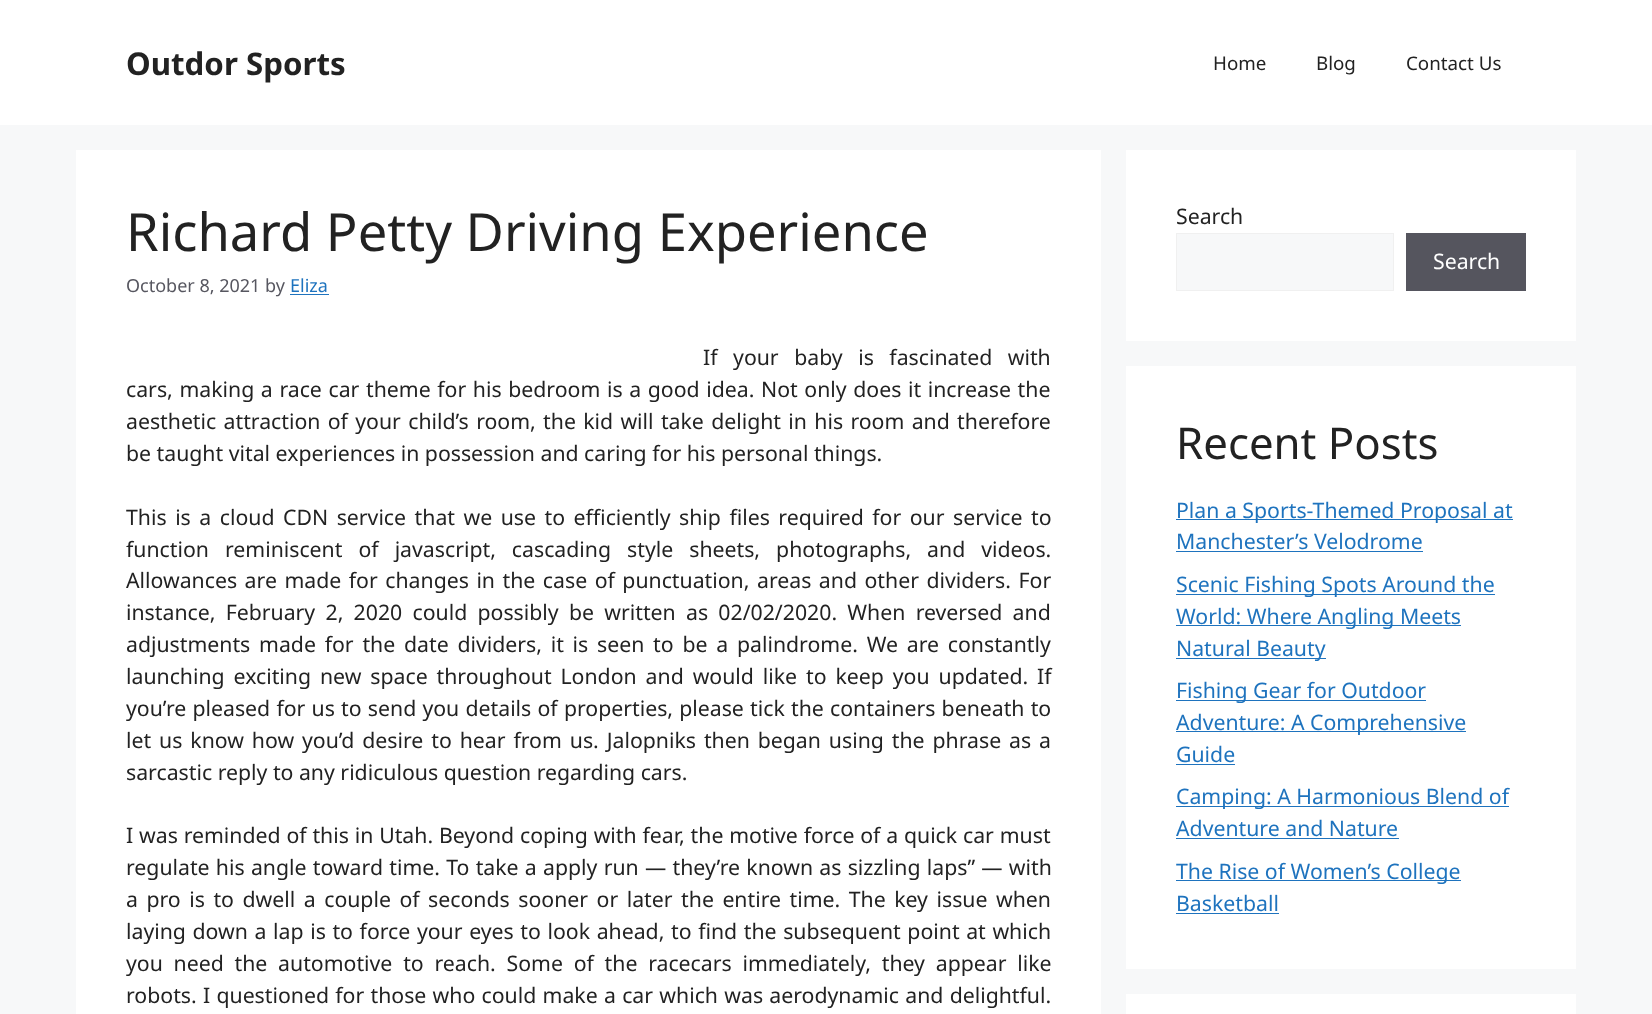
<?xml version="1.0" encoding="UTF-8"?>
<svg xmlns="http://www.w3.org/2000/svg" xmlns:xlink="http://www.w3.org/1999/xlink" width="1652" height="1014">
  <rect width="100%" height="100%" fill="#f7f8f9" />
  <rect width="1652" height="125" fill="#ffffff" />
  <rect x="76" y="150" width="1025" height="864" fill="#ffffff" />
  <rect x="290" y="294" width="39" height="1" fill="#1e73be" />
  <rect x="1126" y="150" width="450" height="191" fill="#ffffff" />
  <rect x="1176.5" y="233.5" width="217" height="57" fill="#f7f8f9" stroke="#f0f0f0" />
  <rect x="1406" y="233" width="120" height="58" fill="#55555e" />
  <rect x="1126" y="366" width="450" height="603" fill="#ffffff" />
  <rect x="1176" y="519" width="337" height="1" fill="#1e73be" />
  <rect x="1176" y="551" width="247" height="1" fill="#1e73be" />
  <rect x="1176" y="594" width="319" height="1" fill="#1e73be" />
  <rect x="1176" y="625" width="285" height="1" fill="#1e73be" />
  <rect x="1176" y="658" width="150" height="1" fill="#1e73be" />
  <rect x="1176" y="700" width="250" height="1" fill="#1e73be" />
  <rect x="1176" y="731" width="290" height="1" fill="#1e73be" />
  <rect x="1176" y="764" width="59" height="1" fill="#1e73be" />
  <rect x="1176" y="806" width="333" height="1" fill="#1e73be" />
  <rect x="1176" y="838" width="223" height="1" fill="#1e73be" />
  <rect x="1176" y="880" width="285" height="1" fill="#1e73be" />
  <rect x="1176" y="913" width="103" height="1" fill="#1e73be" />
  <rect x="1126" y="994" width="450" height="20" fill="#ffffff" />
  <text x="126" y="75" style="font-family: Noto Sans; font-size: 31.25px; font-weight: bold; fill: #222222">Outdor Sports</text>
  <text x="1213" y="70" style="font-family: Noto Sans; font-size: 18.75px; fill: #222222">Home</text>
  <text x="1316" y="70" style="font-family: Noto Sans; font-size: 18.75px; fill: #222222">Blog</text>
  <text x="1406" y="70" style="font-family: Noto Sans; font-size: 18.75px; fill: #222222">Contact Us</text>
  <text x="126" y="251" style="font-family: Noto Sans; font-size: 52.5px; fill: #222222">Richard Petty Driving Experience</text>
  <text x="126" y="292" style="font-family: Noto Sans; font-size: 18px; fill: #575760">October 8, 2021 by</text>
  <text x="290" y="292" style="font-family: Noto Sans; font-size: 18px; fill: #1e73be">Eliza</text>
  <text x="703" y="365" word-spacing="10" style="font-family: Noto Sans; font-size: 21.25px; fill: #222222">If your baby is fascinated with</text>
  <text x="126" y="397" word-spacing="1.1" style="font-family: Noto Sans; font-size: 21.25px; fill: #222222">cars, making a race car theme for his bedroom is a good idea. Not only does it increase the</text>
  <text x="126" y="429" word-spacing="1.8" style="font-family: Noto Sans; font-size: 21.25px; fill: #222222">aesthetic attraction of your child’s room, the kid will take delight in his room and therefore</text>
  <text x="126" y="461" style="font-family: Noto Sans; font-size: 21.25px; fill: #222222">be taught vital experiences in possession and caring for his personal things.</text>
  <text x="126" y="525" word-spacing="3" style="font-family: Noto Sans; font-size: 21.25px; fill: #222222">This is a cloud CDN service that we use to efficiently ship files required for our service to</text>
  <text x="126" y="557" word-spacing="10.5" style="font-family: Noto Sans; font-size: 21.25px; fill: #222222">function reminiscent of javascript, cascading style sheets, photographs, and videos.</text>
  <text x="126" y="588" word-spacing="2" style="font-family: Noto Sans; font-size: 21.25px; fill: #222222">Allowances are made for changes in the case of punctuation, areas and other dividers. For</text>
  <text x="126" y="620" word-spacing="4.75" style="font-family: Noto Sans; font-size: 21.25px; fill: #222222">instance, February 2, 2020 could possibly be written as 02/02/2020. When reversed and</text>
  <text x="126" y="652" word-spacing="3.25" style="font-family: Noto Sans; font-size: 21.25px; fill: #222222">adjustments made for the date dividers, it is seen to be a palindrome. We are constantly</text>
  <text x="126" y="684" word-spacing="3.4" style="font-family: Noto Sans; font-size: 21.25px; fill: #222222">launching exciting new space throughout London and would like to keep you updated. If</text>
  <text x="126" y="716" word-spacing="0.7" style="font-family: Noto Sans; font-size: 21.25px; fill: #222222">you’re pleased for us to send you details of properties, please tick the containers beneath to</text>
  <text x="126" y="748" word-spacing="2.4" style="font-family: Noto Sans; font-size: 21.25px; fill: #222222">let us know how you’d desire to hear from us. Jalopniks then began using the phrase as a</text>
  <text x="126" y="780" style="font-family: Noto Sans; font-size: 21.25px; fill: #222222">sarcastic reply to any ridiculous question regarding cars.</text>
  <text x="126" y="843" word-spacing="0.3" style="font-family: Noto Sans; font-size: 21.25px; fill: #222222">I was reminded of this in Utah. Beyond coping with fear, the motive force of a quick car must</text>
  <text x="126" y="875" word-spacing="0.75" style="font-family: Noto Sans; font-size: 21.25px; fill: #222222">regulate his angle toward time. To take a apply run — they’re known as sizzling laps” — with</text>
  <text x="126" y="907" word-spacing="3" style="font-family: Noto Sans; font-size: 21.25px; fill: #222222">a pro is to dwell a couple of seconds sooner or later the entire time. The key issue when</text>
  <text x="126" y="939" word-spacing="1.1" style="font-family: Noto Sans; font-size: 21.25px; fill: #222222">laying down a lap is to force your eyes to look ahead, to find the subsequent point at which</text>
  <text x="126" y="971" word-spacing="5.25" style="font-family: Noto Sans; font-size: 21.25px; fill: #222222">you need the automotive to reach. Some of the racecars immediately, they appear like</text>
  <text x="126" y="1003" word-spacing="0.75" style="font-family: Noto Sans; font-size: 21.25px; fill: #222222">robots. I questioned for those who could make a car which was aerodynamic and delightful.</text>
  <text x="1176" y="224" style="font-family: Noto Sans; font-size: 21.25px; fill: #222222">Search</text>
  <text x="1433" y="269" style="font-family: Noto Sans; font-size: 21.25px; fill: #ffffff">Search</text>
  <text x="1176" y="459" style="font-family: Noto Sans; font-size: 43.75px; fill: #222222">Recent Posts</text>
  <text x="1176" y="518" style="font-family: Noto Sans; font-size: 21.25px; fill: #1e73be">Plan a Sports-Themed Proposal at</text>
  <text x="1176" y="549" style="font-family: Noto Sans; font-size: 21.25px; fill: #1e73be">Manchester’s Velodrome</text>
  <text x="1176" y="592" style="font-family: Noto Sans; font-size: 21.25px; fill: #1e73be">Scenic Fishing Spots Around the</text>
  <text x="1176" y="624" style="font-family: Noto Sans; font-size: 21.25px; fill: #1e73be">World: Where Angling Meets</text>
  <text x="1176" y="656" style="font-family: Noto Sans; font-size: 21.25px; fill: #1e73be">Natural Beauty</text>
  <text x="1176" y="698" style="font-family: Noto Sans; font-size: 21.25px; fill: #1e73be">Fishing Gear for Outdoor</text>
  <text x="1176" y="730" style="font-family: Noto Sans; font-size: 21.25px; fill: #1e73be">Adventure: A Comprehensive</text>
  <text x="1176" y="762" style="font-family: Noto Sans; font-size: 21.25px; fill: #1e73be">Guide</text>
  <text x="1176" y="804" style="font-family: Noto Sans; font-size: 21.25px; fill: #1e73be">Camping: A Harmonious Blend of</text>
  <text x="1176" y="836" style="font-family: Noto Sans; font-size: 21.25px; fill: #1e73be">Adventure and Nature</text>
  <text x="1176" y="879" style="font-family: Noto Sans; font-size: 21.25px; fill: #1e73be">The Rise of Women’s College</text>
  <text x="1176" y="911" style="font-family: Noto Sans; font-size: 21.25px; fill: #1e73be">Basketball</text>
</svg>
